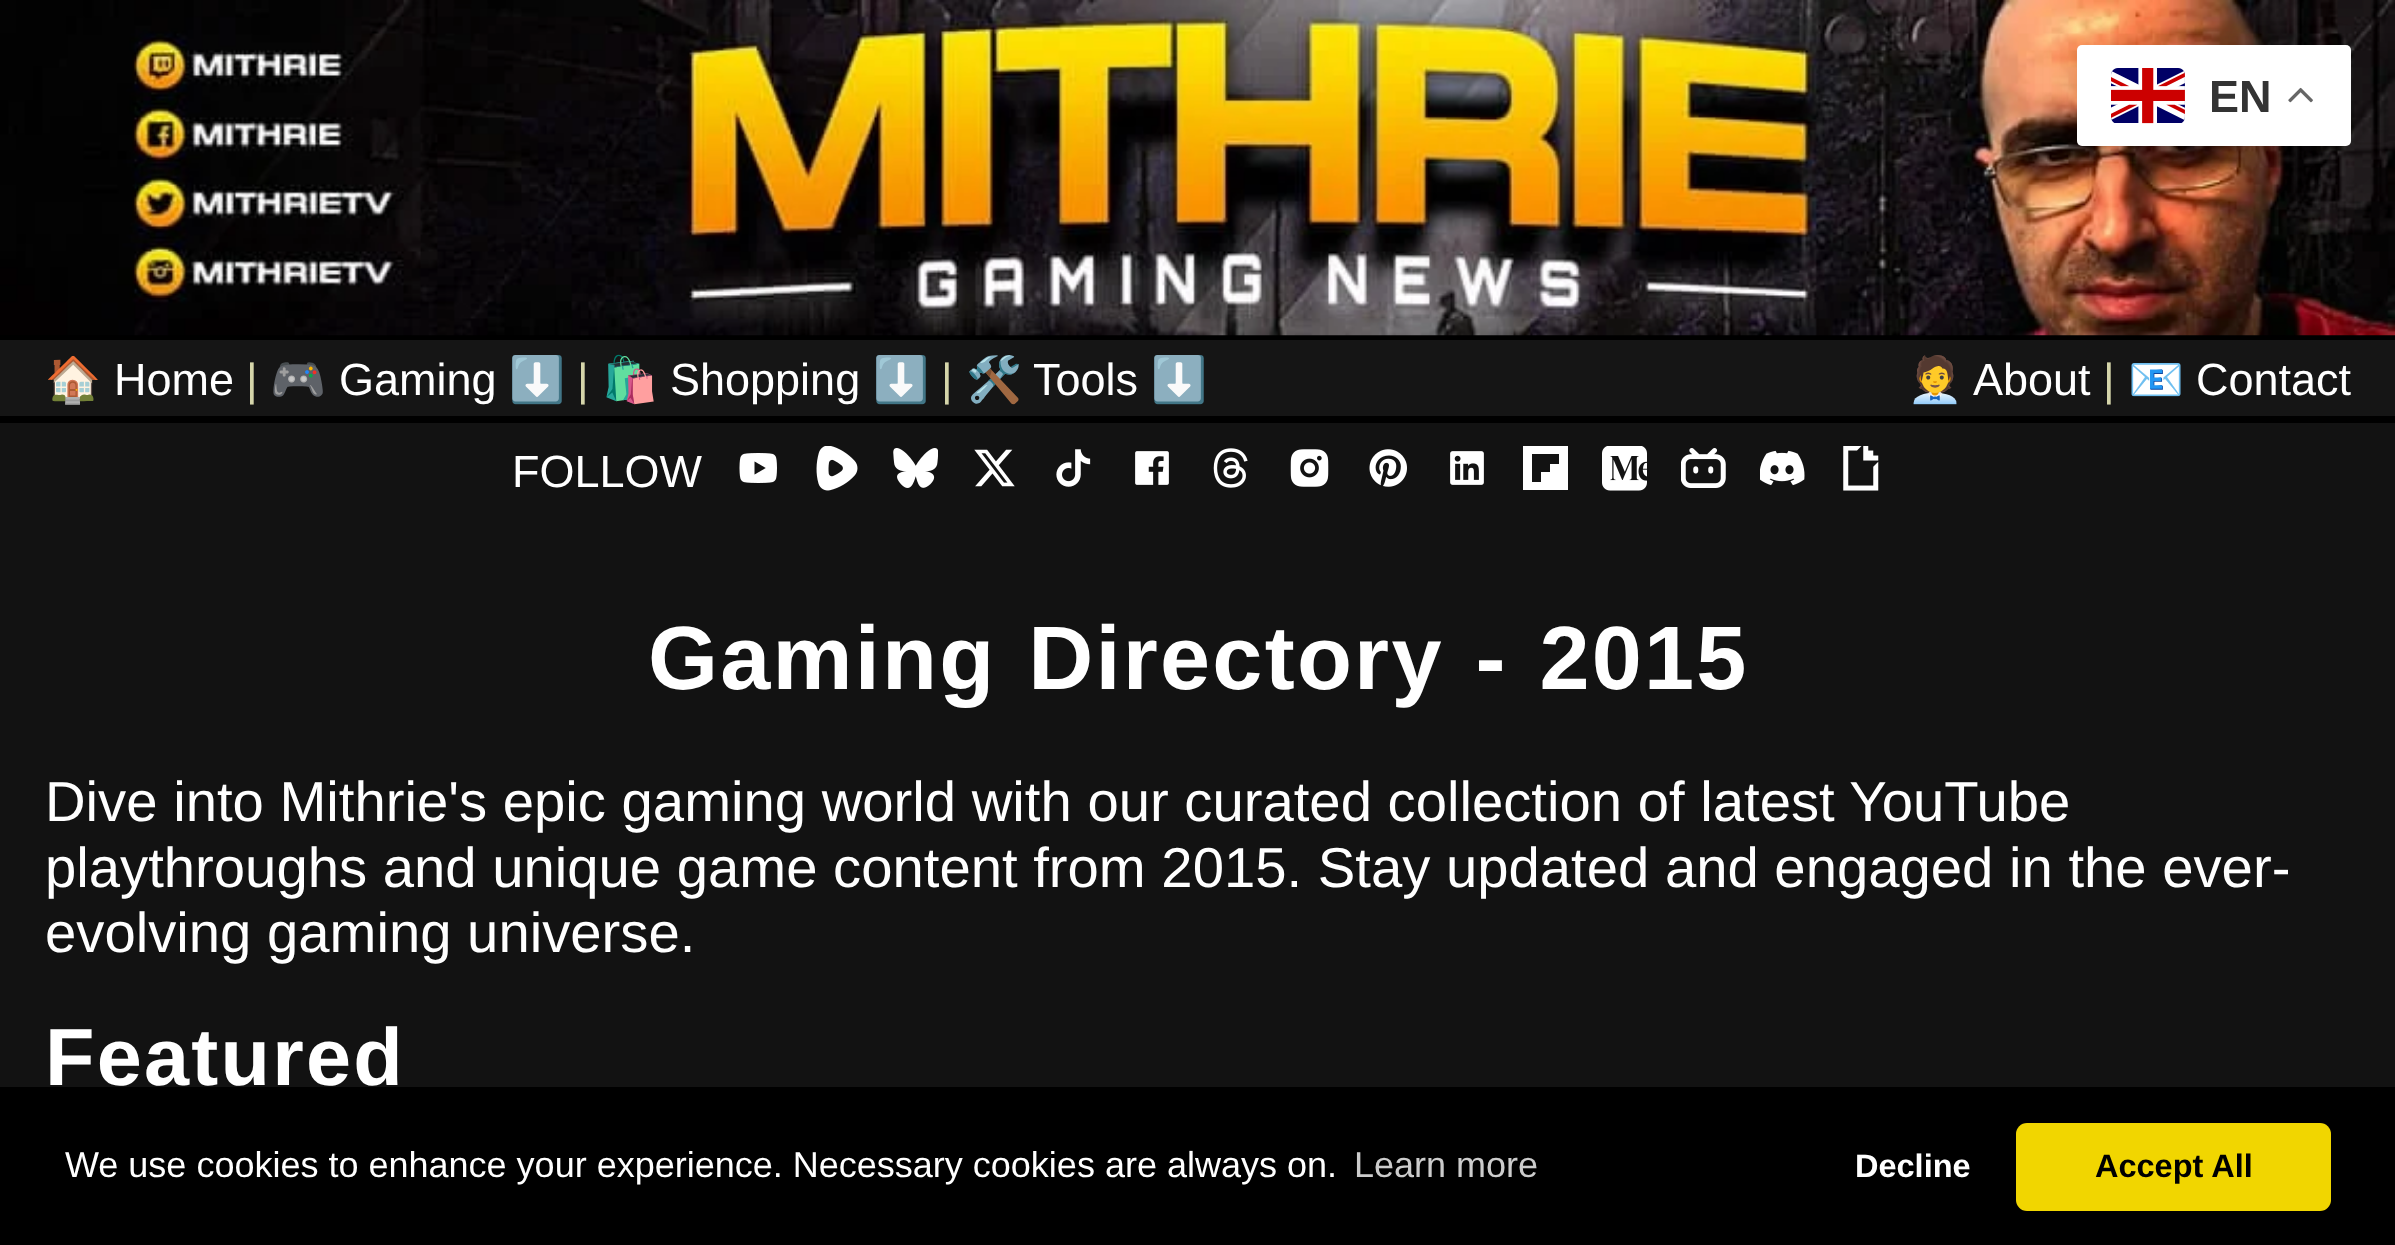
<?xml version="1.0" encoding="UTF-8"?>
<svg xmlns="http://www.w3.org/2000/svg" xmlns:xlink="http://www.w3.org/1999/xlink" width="2395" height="1245">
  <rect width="100%" height="100%" fill="#121212" />
  <rect y="335" width="2395" height="5" fill="#000000" />
  <image x="0" y="0" width="2395" height="336" xlink:href="image3.png" />
  <rect x="2077" y="56" width="274" height="102" rx="5" fill="#000000" fill-opacity="0.15" filter="blur(17px)" />
  <rect x="2077" y="45" width="274" height="101" rx="5" fill="#ffffff" />
  <image x="2111" y="68" width="74" height="56" xlink:href="image1.png" />
  <image x="2288" y="87" width="25" height="16" xlink:href="image2.png" />
  <rect y="340" width="2395" height="76" fill="#151515" />
  <rect y="416" width="2395" height="7" fill="#000000" />
  <image x="739" y="453" width="38" height="30" xlink:href="image4.png" />
  <image x="816" y="446" width="42" height="45" xlink:href="image5.png" />
  <image x="893" y="448" width="45" height="40" xlink:href="image6.png" />
  <image x="974" y="449" width="41" height="38" xlink:href="image7.png" />
  <image x="1056" y="449" width="35" height="38" xlink:href="image8.png" />
  <image x="1135" y="451" width="34" height="34" xlink:href="image9.png" />
  <image x="1213" y="448" width="35" height="40" xlink:href="image10.png" />
  <image x="1290" y="449" width="39" height="38" xlink:href="image11.png" />
  <image x="1369" y="449" width="38" height="38" xlink:href="image12.png" />
  <image x="1450" y="451" width="34" height="34" xlink:href="image13.png" />
  <path d="M 1523 446 v 44 h 45 v -44 z m 36 18 h -9 v 8 h -9 v 10 h -9 v -28 h 27 z" fill="#ffffff" />
  <image x="1602" y="446" width="45" height="45" xlink:href="image14.png" />
  <image x="1681" y="448" width="45" height="40" xlink:href="image15.png" />
  <image x="1760" y="450" width="45" height="36" xlink:href="image16.png" />
  <image x="1843" y="446" width="36" height="45" xlink:href="image17.png" />
  <rect y="1087" width="2395" height="158" fill="#000000" />
  <rect x="2016" y="1123" width="315" height="88" rx="11" fill="#f1d600" />
  <text x="2209" y="112" style="font-family: Liberation Sans; font-size: 45px; font-weight: bold; fill: #333333">EN</text>
  <text x="45" y="395" style="font-family: Noto Color Emoji; font-size: 45px; fill: #ffffff">🏠</text>
  <text x="114" y="395" style="font-family: Liberation Sans; font-size: 45px; fill: #ffffff">Home</text>
  <text x="246" y="395" style="font-family: Liberation Sans; font-size: 45px; fill: #d5d5aa">|</text>
  <text x="270" y="395" style="font-family: Noto Color Emoji; font-size: 45px; fill: #ffffff">🎮</text>
  <text x="339" y="395" style="font-family: Liberation Sans; font-size: 45px; fill: #ffffff">Gaming</text>
  <text x="509" y="395" style="font-family: Noto Color Emoji; font-size: 45px; fill: #d5d5aa">⬇️</text>
  <text x="577" y="395" style="font-family: Liberation Sans; font-size: 45px; fill: #d5d5aa">|</text>
  <text x="602" y="395" style="font-family: Noto Color Emoji; font-size: 45px; fill: #ffffff">🛍️</text>
  <text x="670" y="395" style="font-family: Liberation Sans; font-size: 45px; fill: #ffffff">Shopping</text>
  <text x="873" y="395" style="font-family: Noto Color Emoji; font-size: 45px; fill: #d5d5aa">⬇️</text>
  <text x="941" y="395" style="font-family: Liberation Sans; font-size: 45px; fill: #d5d5aa">|</text>
  <text x="966" y="395" style="font-family: Noto Color Emoji; font-size: 45px; fill: #ffffff">🛠️</text>
  <text x="1033" y="395" style="font-family: Liberation Sans; font-size: 45px; fill: #ffffff">Tools</text>
  <text x="1151" y="395" style="font-family: Noto Color Emoji; font-size: 45px; fill: #d5d5aa">⬇️</text>
  <text x="1907" y="395" style="font-family: Noto Color Emoji; font-size: 45px; fill: #ffffff">🧑‍💼</text>
  <text x="1973" y="395" style="font-family: Liberation Sans; font-size: 45px; fill: #ffffff">About</text>
  <text x="2103" y="395" style="font-family: Liberation Sans; font-size: 45px; fill: #d5d5aa">|</text>
  <text x="2128" y="395" style="font-family: Noto Color Emoji; font-size: 45px; fill: #ffffff">📧</text>
  <text x="2196" y="395" style="font-family: Liberation Sans; font-size: 45px; fill: #ffffff">Contact</text>
  <text x="512" y="487" style="font-family: Liberation Sans; font-size: 45px; fill: #ffffff">FOLLOW</text>
  <text x="648" y="689" word-spacing="4.5" style="font-family: Liberation Sans; font-size: 90px; font-weight: bold; letter-spacing: 2.25px; fill: #ffffff">Gaming Directory - 2015</text>
  <text x="45" y="821" style="font-family: Liberation Sans; font-size: 56.25px; fill: #ffffff">Dive into Mithrie's epic gaming world with our curated collection of latest YouTube</text>
  <text x="45" y="887" style="font-family: Liberation Sans; font-size: 56.25px; fill: #ffffff">playthroughs and unique game content from 2015. Stay updated and engaged in the ever-</text>
  <text x="45" y="952" style="font-family: Liberation Sans; font-size: 56.25px; fill: #ffffff">evolving gaming universe.</text>
  <text x="45" y="1085" style="font-family: Liberation Sans; font-size: 81px; font-weight: bold; letter-spacing: 2.25px; fill: #ffffff">Featured</text>
  <text x="65" y="1177" style="font-family: Liberation Sans; font-size: 36px; fill: #ffffff">We use cookies to enhance your experience. Necessary cookies are always on.</text>
  <text x="1354" y="1177" style="font-family: Liberation Sans; font-size: 36px; fill: #cccccc">Learn more</text>
  <text x="1855" y="1177" style="font-family: Liberation Sans; font-size: 32.5px; font-weight: bold; fill: #ffffff">Decline</text>
  <text x="2095" y="1177" style="font-family: Liberation Sans; font-size: 32.5px; font-weight: bold; fill: #000000">Accept All</text>
</svg>
